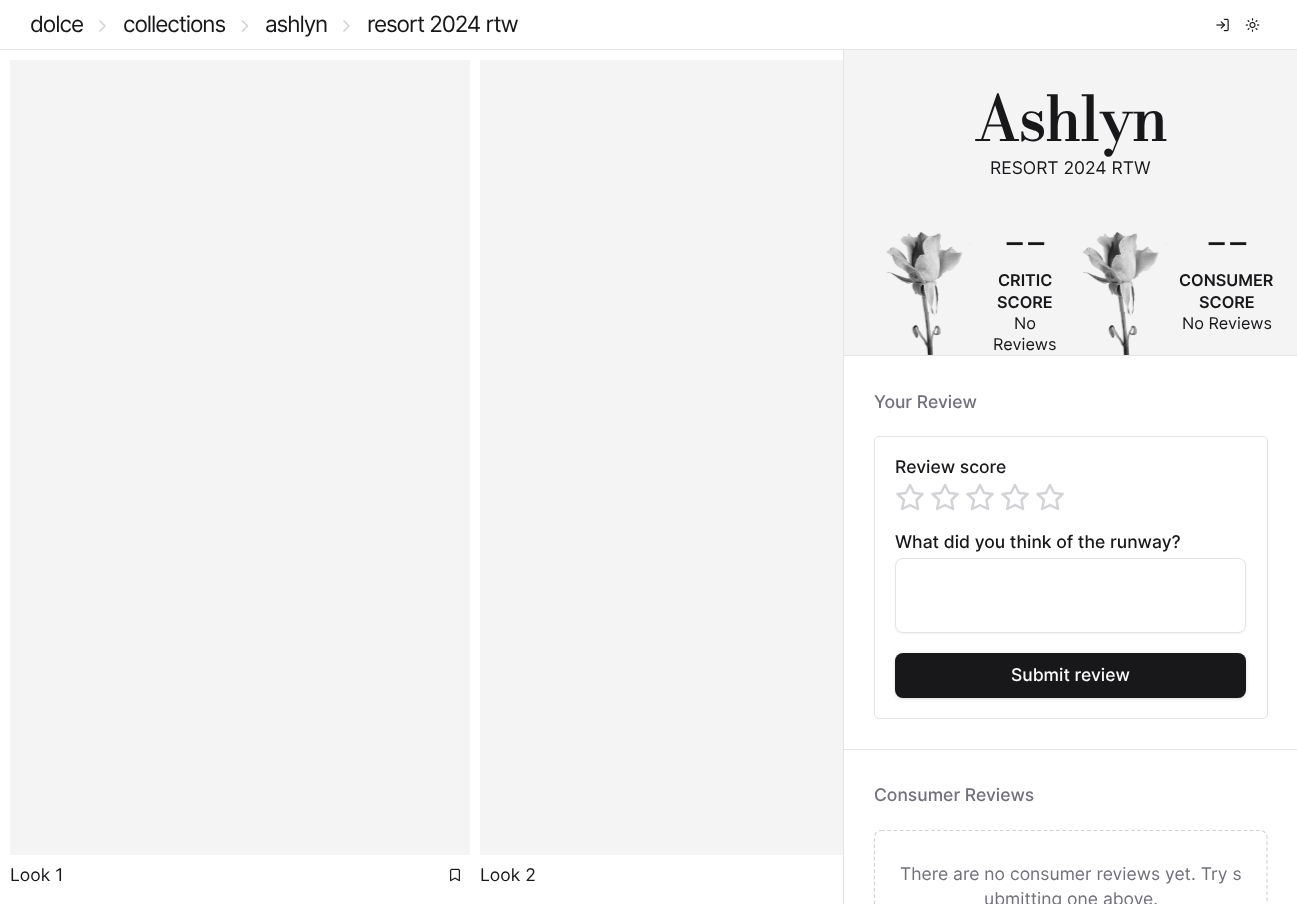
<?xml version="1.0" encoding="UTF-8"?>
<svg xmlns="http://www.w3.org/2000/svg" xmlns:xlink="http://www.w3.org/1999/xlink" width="1297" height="904">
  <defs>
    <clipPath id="clip1"><rect x="895" y="483" width="15" height="30" /></clipPath>
    <clipPath id="clip2"><rect x="910" y="483" width="15" height="30" /></clipPath>
    <clipPath id="clip3"><rect x="930" y="483" width="15" height="30" /></clipPath>
    <clipPath id="clip4"><rect x="945" y="483" width="15" height="30" /></clipPath>
    <clipPath id="clip5"><rect x="965" y="483" width="15" height="30" /></clipPath>
    <clipPath id="clip6"><rect x="980" y="483" width="15" height="30" /></clipPath>
    <clipPath id="clip7"><rect x="1000" y="483" width="15" height="30" /></clipPath>
    <clipPath id="clip8"><rect x="1015" y="483" width="15" height="30" /></clipPath>
    <clipPath id="clip9"><rect x="1035" y="483" width="15" height="30" /></clipPath>
    <clipPath id="clip10"><rect x="1050" y="483" width="15" height="30" /></clipPath>
  </defs>
  <rect width="100%" height="100%" fill="#ffffff" />
  <rect y="49" width="1297" height="1" fill="#e4e4e7" />
  <path d="M 100 31 l 5 -5 l -5 -5" fill="none" stroke="#d4d4d8" stroke-width="1.7" stroke-linecap="round" stroke-linejoin="round" />
  <path d="M 242.5 31 l 5 -5 l -5 -5" fill="none" stroke="#d4d4d8" stroke-width="1.7" stroke-linecap="round" stroke-linejoin="round" />
  <path d="M 344 31 l 5 -5 l -5 -5" fill="none" stroke="#d4d4d8" stroke-width="1.7" stroke-linecap="round" stroke-linejoin="round" />
  <image x="1216" y="18" width="13" height="14" xlink:href="image1.png" />
  <image x="1245" y="18" width="15" height="14" xlink:href="image2.png" />
  <rect x="10" y="60" width="460" height="795" fill="#f4f4f5" />
  <image x="450" y="868" width="10" height="14" xlink:href="image3.png" />
  <rect x="480" y="60" width="363" height="795" fill="#f4f4f5" />
  <rect x="843" y="50" width="1" height="854" fill="#e4e4e7" />
  <rect x="844" y="50" width="453" height="305" fill="#f4f4f5" />
  <rect x="844" y="355" width="453" height="1" fill="#e4e4e7" />
  <image x="886" y="231" width="85" height="124" xlink:href="image4.png" />
  <image x="1082" y="231" width="85" height="124" xlink:href="image5.png" />
  <rect x="844" y="749" width="453" height="1" fill="#e4e4e7" />
  <rect x="874.5" y="436.5" width="393" height="282" rx="4.5" fill="none" stroke="#e4e4e7" />
  <g clip-path="url(#clip1)">
    <path d="M 910 505 l -8 4 l 2 -9 l -6.5 -6 l 8.5 -1 l 4 -8" fill="none" stroke="#d4d4d8" stroke-width="2.5" stroke-linecap="round" stroke-linejoin="round" />
  </g>
  <g clip-path="url(#clip2)">
    <path d="M 910 505 l 8 4 l -1.5 -9 l 6 -6 l -8.5 -1 l -4 -8" fill="none" stroke="#d4d4d8" stroke-width="2.5" stroke-linecap="round" stroke-linejoin="round" />
  </g>
  <g clip-path="url(#clip3)">
    <path d="M 945 505 l -8 4 l 2 -9 l -6.5 -6 l 8.5 -1 l 4 -8" fill="none" stroke="#d4d4d8" stroke-width="2.5" stroke-linecap="round" stroke-linejoin="round" />
  </g>
  <g clip-path="url(#clip4)">
    <path d="M 945 505 l 8 4 l -1.5 -9 l 6 -6 l -8.5 -1 l -4 -8" fill="none" stroke="#d4d4d8" stroke-width="2.5" stroke-linecap="round" stroke-linejoin="round" />
  </g>
  <g clip-path="url(#clip5)">
    <path d="M 980 505 l -8 4 l 2 -9 l -6.5 -6 l 8.5 -1 l 4 -8" fill="none" stroke="#d4d4d8" stroke-width="2.5" stroke-linecap="round" stroke-linejoin="round" />
  </g>
  <g clip-path="url(#clip6)">
    <path d="M 980 505 l 8 4 l -1.5 -9 l 6 -6 l -8.5 -1 l -4 -8" fill="none" stroke="#d4d4d8" stroke-width="2.5" stroke-linecap="round" stroke-linejoin="round" />
  </g>
  <g clip-path="url(#clip7)">
    <path d="M 1015 505 l -8 4 l 2 -9 l -6.5 -6 l 8.5 -1 l 4 -8" fill="none" stroke="#d4d4d8" stroke-width="2.5" stroke-linecap="round" stroke-linejoin="round" />
  </g>
  <g clip-path="url(#clip8)">
    <path d="M 1015 505 l 8 4 l -1.5 -9 l 6 -6 l -8.5 -1 l -4 -8" fill="none" stroke="#d4d4d8" stroke-width="2.5" stroke-linecap="round" stroke-linejoin="round" />
  </g>
  <g clip-path="url(#clip9)">
    <path d="M 1050 505 l -8 4 l 2 -9 l -6.5 -6 l 8.5 -1 l 4 -8" fill="none" stroke="#d4d4d8" stroke-width="2.5" stroke-linecap="round" stroke-linejoin="round" />
  </g>
  <g clip-path="url(#clip10)">
    <path d="M 1050 505 l 8 4 l -1.5 -9 l 6 -6 l -8.5 -1 l -4 -8" fill="none" stroke="#d4d4d8" stroke-width="2.5" stroke-linecap="round" stroke-linejoin="round" />
  </g>
  <rect x="895" y="559" width="351" height="75" rx="8" fill="#000000" fill-opacity="0.05" filter="blur(1px)" />
  <rect x="895.5" y="558.5" width="350" height="74" rx="7.5" fill="#ffffff" stroke="#e4e4e7" />
  <rect x="896" y="655" width="349" height="43" rx="6" fill="#000000" fill-opacity="0.1" filter="blur(1px)" />
  <rect x="895" y="654" width="351" height="45" rx="8" fill="#000000" fill-opacity="0.1" filter="blur(2px)" />
  <rect x="895" y="653" width="351" height="45" rx="8" fill="#18181b" />
  <path d="M 881 830.5 h 379 c 4 0 7 3 7 7 v 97.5 c 0 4 -3 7 -7 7 h -379 c -3.5 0 -6.5 -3 -6.5 -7 v -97.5 c 0 -4 3 -7 6.5 -7 z" fill="none" stroke="#d4d4d8" stroke-width="1.2" stroke-dasharray="3.75 2.5" />
  <text x="30" y="32" style="font-family: Inter; font-size: 22.5px; letter-spacing: -1.1px; fill: #18181b">dolce</text>
  <text x="123" y="32" style="font-family: Inter; font-size: 22.5px; letter-spacing: -1.1px; fill: #18181b">collections</text>
  <text x="265" y="32" style="font-family: Inter; font-size: 22.5px; letter-spacing: -1.1px; fill: #18181b">ashlyn</text>
  <text x="367" y="32" style="font-family: Inter; font-size: 22.5px; letter-spacing: -1.1px; fill: #18181b">resort 2024 rtw</text>
  <text x="10" y="881" style="font-family: Inter; font-size: 17.5px; fill: #18181b">Look 1</text>
  <text x="480" y="881" style="font-family: Inter; font-size: 17.5px; fill: #18181b">Look 2</text>
  <text x="974" y="141" style="font-family: Bodoni Moda; font-size: 60px; font-weight: bold; fill: #18181b">Ashlyn</text>
  <text x="990" y="174" style="font-family: Inter; font-size: 17.5px; fill: #18181b">RESORT 2024 RTW</text>
  <text x="1003" y="261" style="font-family: 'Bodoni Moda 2'; font-size: 60px; font-weight: bold; fill: #18181b">--</text>
  <text x="998" y="286" style="font-family: Inter; font-size: 16.25px; font-weight: 600; fill: #18181b">CRITIC</text>
  <text x="997" y="308" style="font-family: Inter; font-size: 16.25px; font-weight: 600; fill: #18181b">SCORE</text>
  <text x="1014" y="329" style="font-family: Inter; font-size: 16.25px; fill: #18181b">No</text>
  <text x="993" y="350" style="font-family: Inter; font-size: 16.25px; fill: #18181b">Reviews</text>
  <text x="1205" y="261" style="font-family: 'Bodoni Moda 2'; font-size: 60px; font-weight: bold; fill: #18181b">--</text>
  <text x="1179" y="286" style="font-family: Inter; font-size: 16.25px; font-weight: 600; fill: #18181b">CONSUMER</text>
  <text x="1199" y="308" style="font-family: Inter; font-size: 16.25px; font-weight: 600; fill: #18181b">SCORE</text>
  <text x="1182" y="329" style="font-family: Inter; font-size: 16.25px; fill: #18181b">No Reviews</text>
  <text x="874" y="408" style="font-family: Inter; font-size: 17.5px; font-weight: 500; fill: #71717a">Your Review</text>
  <text x="895" y="473" style="font-family: Inter; font-size: 17.5px; font-weight: 500; fill: #18181b">Review score</text>
  <text x="895" y="548" style="font-family: Inter; font-size: 17.5px; font-weight: 500; fill: #18181b">What did you think of the runway?</text>
  <text x="1011" y="681" style="font-family: Inter; font-size: 17.5px; font-weight: 500; fill: #fafafa">Submit review</text>
  <text x="874" y="801" style="font-family: Inter; font-size: 17.5px; font-weight: 500; fill: #71717a">Consumer Reviews</text>
  <text x="900" y="880" style="font-family: Inter; font-size: 17.5px; fill: #71717a">There are no consumer reviews yet. Try s</text>
  <text x="984" y="905" style="font-family: Inter; font-size: 17.5px; fill: #71717a">ubmitting one above.</text>
</svg>
